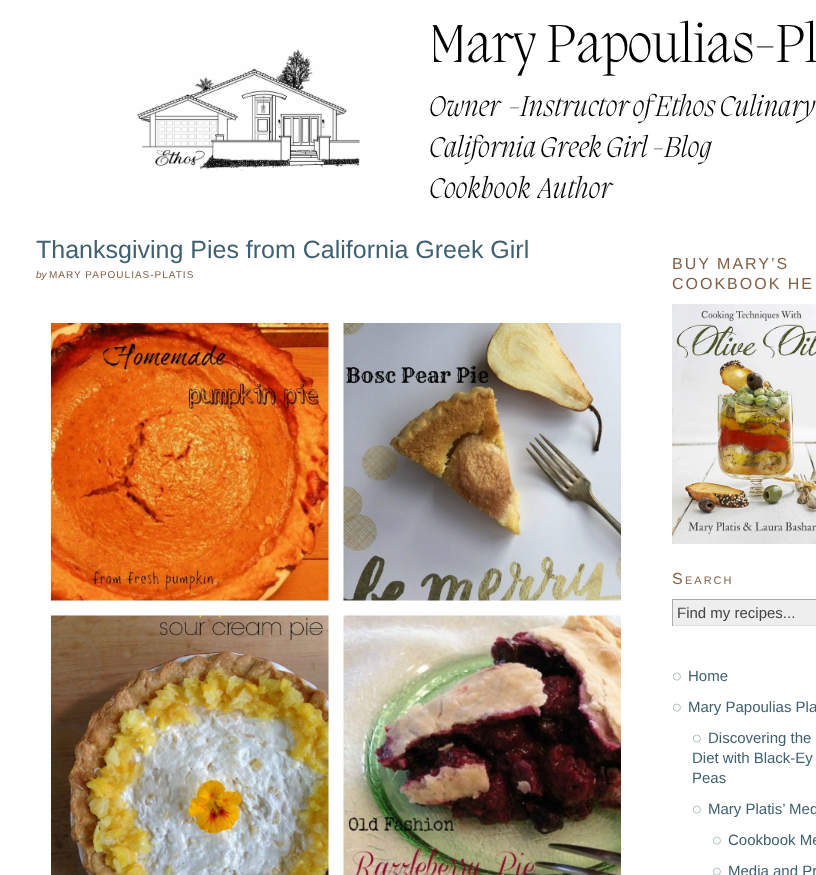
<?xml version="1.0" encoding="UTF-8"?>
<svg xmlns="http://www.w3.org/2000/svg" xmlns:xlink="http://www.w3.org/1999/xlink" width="816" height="875">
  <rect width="100%" height="100%" fill="#ffffff" />
  <image x="136" y="20" width="680" height="179" xlink:href="image1.png" />
  <image x="48" y="320" width="576" height="555" xlink:href="image2.png" />
  <image x="672" y="304" width="144" height="240" xlink:href="image3.png" />
  <rect x="673" y="600" width="143" height="25" fill="#eeeeee" />
  <rect x="672" y="599" width="144" height="1" fill="#aaaaaa" />
  <rect x="672" y="625" width="144" height="1" fill="#dddddd" />
  <rect x="672" y="599" width="1" height="27" fill="#aaaaaa" />
  <image x="673" y="672" width="8" height="9" xlink:href="image4.png" />
  <image x="673" y="703" width="8" height="9" xlink:href="image4.png" />
  <image x="693" y="734" width="8" height="9" xlink:href="image4.png" />
  <image x="693" y="805" width="8" height="9" xlink:href="image4.png" />
  <image x="713" y="836" width="8" height="9" xlink:href="image4.png" />
  <image x="713" y="867" width="8" height="8" xlink:href="image5.png" />
  <text x="36" y="258" style="font-family: Liberation Sans; font-size: 25px; fill: #3e606f">Thanksgiving Pies from California Greek Girl</text>
  <text x="36" y="278" style="font-family: Liberation Sans; font-size: 10px; font-style: italic; fill: #806046">by</text>
  <text x="49" y="278" style="font-family: Liberation Sans; font-size: 10px; letter-spacing: 1px; fill: #806046">MARY PAPOULIAS-PLATIS</text>
  <text x="672" y="269" style="font-family: Liberation Sans; font-size: 16px; letter-spacing: 2px; fill: #806046">BUY MARY’S</text>
  <text x="672" y="289" style="font-family: Liberation Sans; font-size: 16px; letter-spacing: 2px; fill: #806046">COOKBOOK HE</text>
  <text x="672" y="584" style="font-family: Liberation Sans; font-size: 16px; letter-spacing: 2px; fill: #806046">S</text>
  <text x="685" y="584" style="font-family: Liberation Sans; font-size: 11px; letter-spacing: 2px; fill: #806046">EARCH</text>
  <text x="677" y="618" style="font-family: Liberation Sans; font-size: 15px; fill: #444444">Find my recipes...</text>
  <text x="688" y="681" style="font-family: Liberation Sans; font-size: 15px; fill: #3e606f">Home</text>
  <text x="688" y="712" style="font-family: Liberation Sans; font-size: 15px; fill: #3e606f">Mary Papoulias Pla</text>
  <text x="708" y="743" style="font-family: Liberation Sans; font-size: 15px; fill: #3e606f">Discovering the</text>
  <text x="692" y="763" style="font-family: Liberation Sans; font-size: 15px; fill: #3e606f">Diet with Black-Ey</text>
  <text x="692" y="783" style="font-family: Liberation Sans; font-size: 15px; fill: #3e606f">Peas</text>
  <text x="708" y="814" style="font-family: Liberation Sans; font-size: 15px; fill: #3e606f">Mary Platis’ Med</text>
  <text x="728" y="845" style="font-family: Liberation Sans; font-size: 15px; fill: #3e606f">Cookbook Me</text>
  <text x="728" y="876" style="font-family: Liberation Sans; font-size: 15px; fill: #3e606f">Media and Pr</text>
</svg>
